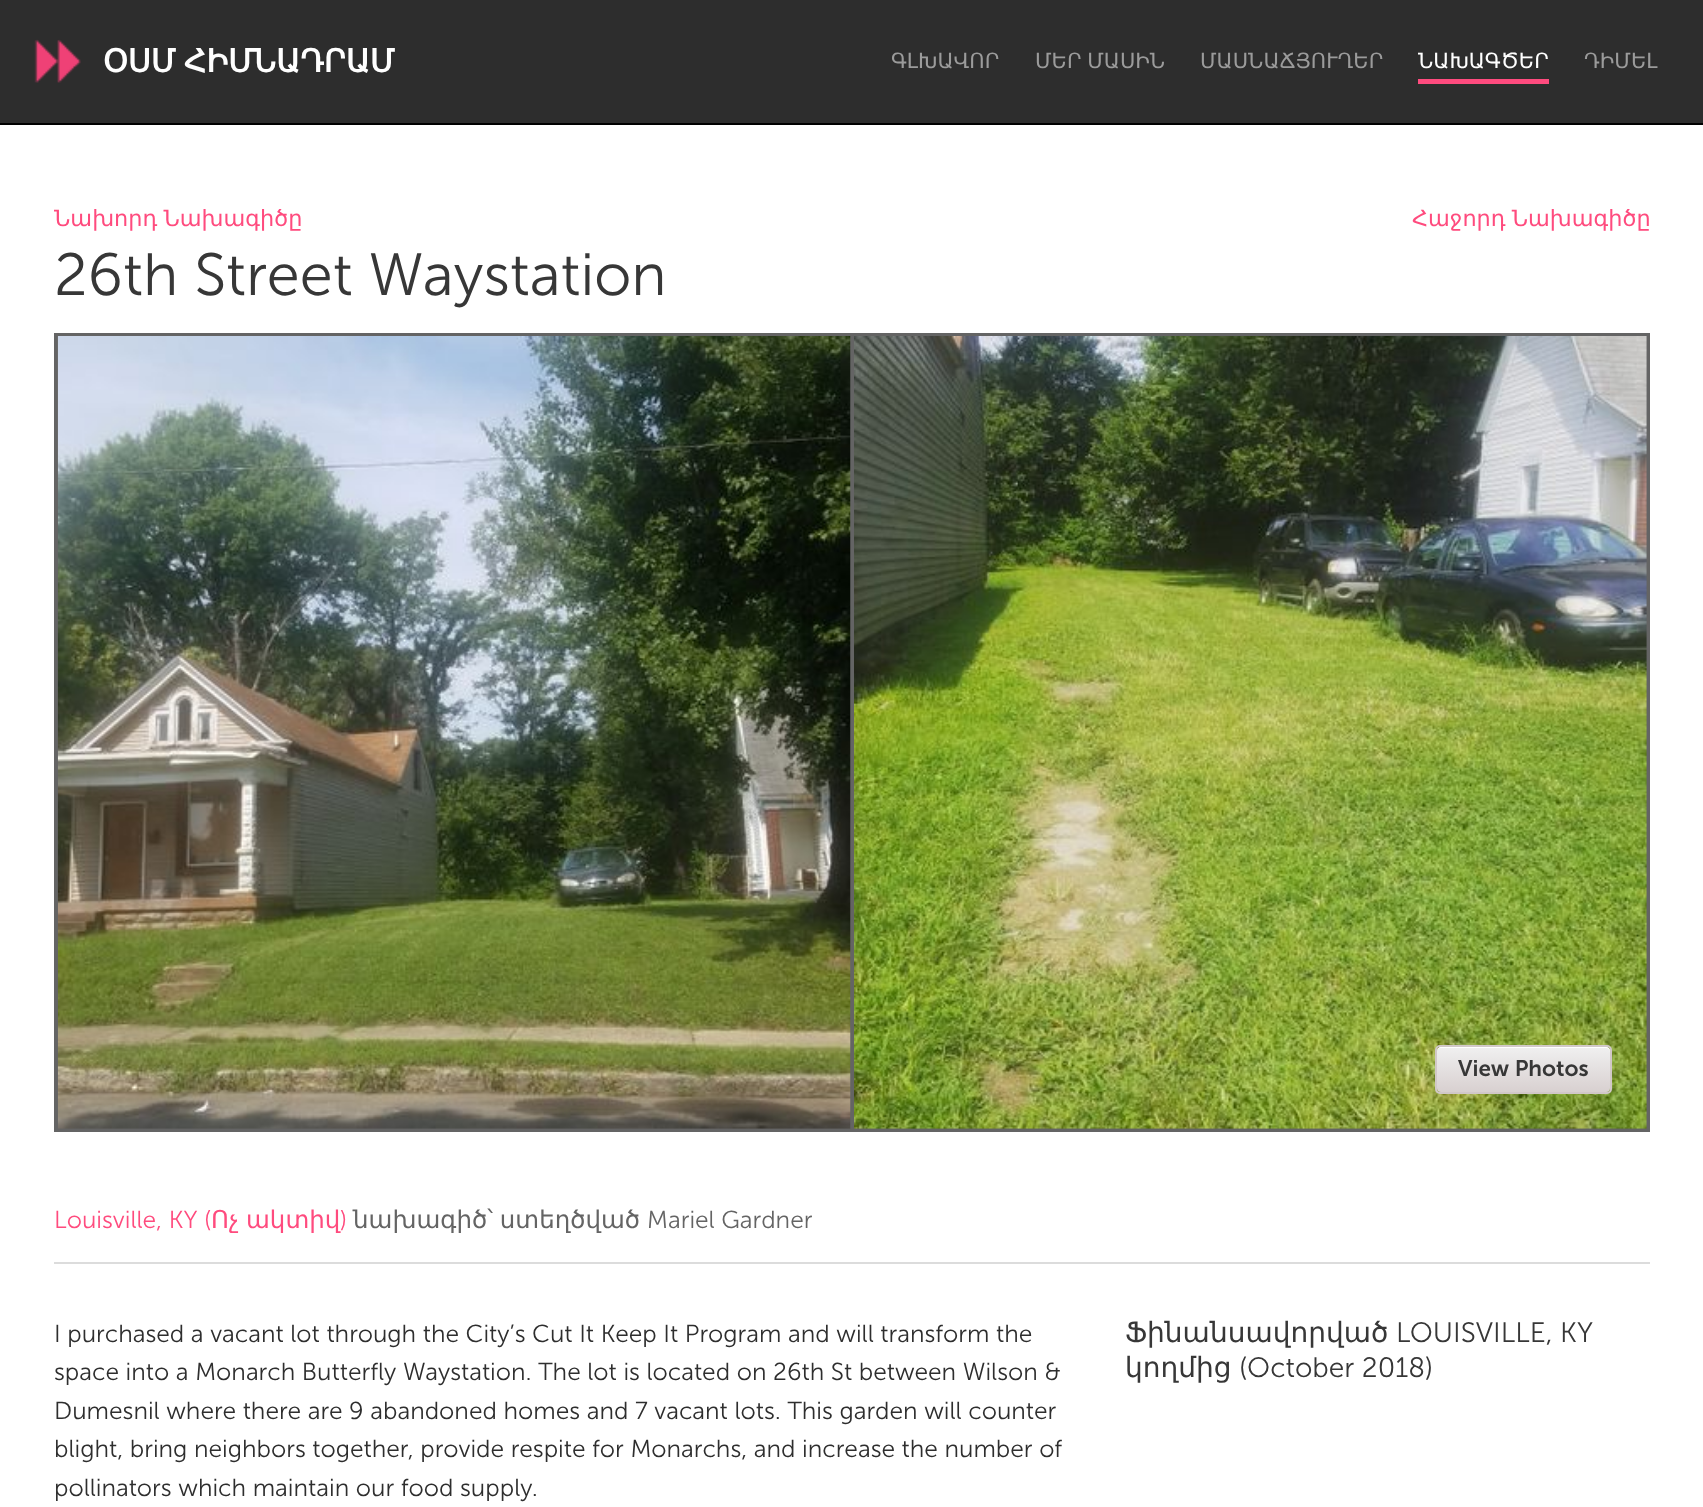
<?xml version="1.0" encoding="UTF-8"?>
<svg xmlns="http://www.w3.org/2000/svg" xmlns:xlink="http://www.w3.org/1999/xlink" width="1703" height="1507">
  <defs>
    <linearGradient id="g1" gradientUnits="userSpaceOnUse" x1="1523" y1="1047" x2="1523" y2="1092"><stop offset="0" stop-color="#f0f0f0" /><stop offset="1" stop-color="#d8d0d0" /></linearGradient>
  </defs>
  <rect width="100%" height="100%" fill="#ffffff" />
  <rect width="1703" height="123" fill="#2d2d2d" />
  <rect y="123" width="1703" height="2" fill="#000000" />
  <image x="34" y="39" width="47" height="44" xlink:href="image1.png" />
  <rect x="1418" y="79" width="131" height="5" fill="#ff4b7e" />
  <rect x="54" y="333" width="1596" height="799" fill="#646464" />
  <image x="57" y="336" width="794" height="793" xlink:href="image2.png" />
  <image x="854" y="336" width="793" height="793" xlink:href="image3.png" />
  <rect x="1437" y="1047" width="173" height="45" rx="4" fill="url(#g1)" />
  <path d="M 1440 1048 h 166 c 2 0 4 2 4 4 v -1 c 0 -2 -2 -4 -4 -4 h -165 c -2 0 -4 2 -4 4 v 1 c 0 -2 1 -4 3 -4 z" fill="#ffffff" />
  <rect x="1436" y="1046" width="175" height="47" rx="4" fill="none" stroke="#d1c8c8" stroke-width="2" />
  <rect x="54" y="1262" width="1596" height="2" fill="#dcdcdc" />
  <text x="103" y="72" word-spacing="-2" style="font-family: DejaVu Sans; font-size: 31.5px; font-weight: bold; fill: #ffffff">ՕՍՄ ՀԻՄՆԱԴՐԱՄ</text>
  <text x="891" y="68" style="font-family: DejaVu Sans; font-size: 21px; fill: #9b9b9b">ԳԼԽԱՎՈՐ</text>
  <text x="1035" y="68" word-spacing="-1" style="font-family: DejaVu Sans; font-size: 21px; fill: #9b9b9b">ՄԵՐ ՄԱՍԻՆ</text>
  <text x="1200" y="68" style="font-family: DejaVu Sans; font-size: 21px; fill: #9b9b9b">ՄԱՍՆԱՃՅՈՒՂԵՐ</text>
  <text x="1418" y="68" style="font-family: DejaVu Sans; font-size: 21px; fill: #ffffff">ՆԱԽԱԳԾԵՐ</text>
  <text x="1584" y="68" style="font-family: DejaVu Sans; font-size: 21px; fill: #9b9b9b">ԴԻՄԵԼ</text>
  <text x="54" y="226" word-spacing="-1" style="font-family: DejaVu Sans; font-size: 22.4px; fill: #ff4b7e">Նախորդ Նախագիծը</text>
  <text x="1412" y="226" word-spacing="-1" style="font-family: DejaVu Sans; font-size: 22.4px; fill: #ff4b7e">Հաջորդ Նախագիծը</text>
  <text x="54" y="295" style="font-family: 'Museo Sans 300'; font-size: 59.5px; font-weight: 300; fill: #373737">26th Street Waystation</text>
  <text x="1458" y="1076" style="font-family: 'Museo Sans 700'; font-size: 22.4px; font-weight: 600; fill: #373737">View Photos</text>
  <text x="54" y="1228" style="font-family: 'Museo Sans 300'; font-size: 24.5px; font-weight: 300; fill: #ff4b7e">Louisville, KY (</text>
  <text x="211" y="1228" style="font-family: DejaVu Sans; font-size: 24.5px; fill: #ff4b7e">Ոչ</text>
  <text x="246" y="1228" style="font-family: DejaVu Sans; font-size: 24.5px; fill: #ff4b7e">ակտիվ</text>
  <text x="340" y="1228" style="font-family: 'Museo Sans 300'; font-size: 24.5px; font-weight: 300; fill: #ff4b7e">)</text>
  <text x="353" y="1228" word-spacing="-1" style="font-family: DejaVu Sans; font-size: 24.5px; fill: #646464">նախագիծ՝ ստեղծված</text>
  <text x="647" y="1228" style="font-family: 'Museo Sans 300'; font-size: 24.5px; font-weight: 300; fill: #646464">Mariel Gardner</text>
  <text x="54" y="1342" style="font-family: 'Museo Sans 300'; font-size: 24.5px; font-weight: 300; fill: #2e2e2e">I purchased a vacant lot through the City’s Cut It Keep It Program and will transform the</text>
  <text x="54" y="1380" style="font-family: 'Museo Sans 300'; font-size: 24.5px; font-weight: 300; fill: #2e2e2e">space into a Monarch Butterfly Waystation. The lot is located on 26th St between Wilson &amp;</text>
  <text x="54" y="1419" style="font-family: 'Museo Sans 300'; font-size: 24.5px; font-weight: 300; fill: #2e2e2e">Dumesnil where there are 9 abandoned homes and 7 vacant lots. This garden will counter</text>
  <text x="54" y="1457" style="font-family: 'Museo Sans 300'; font-size: 24.5px; font-weight: 300; fill: #2e2e2e">blight, bring neighbors together, provide respite for Monarchs, and increase the number of</text>
  <text x="54" y="1496" style="font-family: 'Museo Sans 300'; font-size: 24.5px; font-weight: 300; fill: #2e2e2e">pollinators which maintain our food supply.</text>
  <text x="1125" y="1342" style="font-family: DejaVu Sans; font-size: 28px; fill: #373737">Ֆինանսավորված</text>
  <text x="1396" y="1342" style="font-family: 'Museo Sans 300'; font-size: 28px; font-weight: 300; fill: #373737">LOUISVILLE, KY</text>
  <text x="1125" y="1377" style="font-family: DejaVu Sans; font-size: 28px; fill: #373737">կողմից</text>
  <text x="1239" y="1377" style="font-family: 'Museo Sans 300'; font-size: 28px; font-weight: 300; fill: #373737">(October 2018)</text>
</svg>
